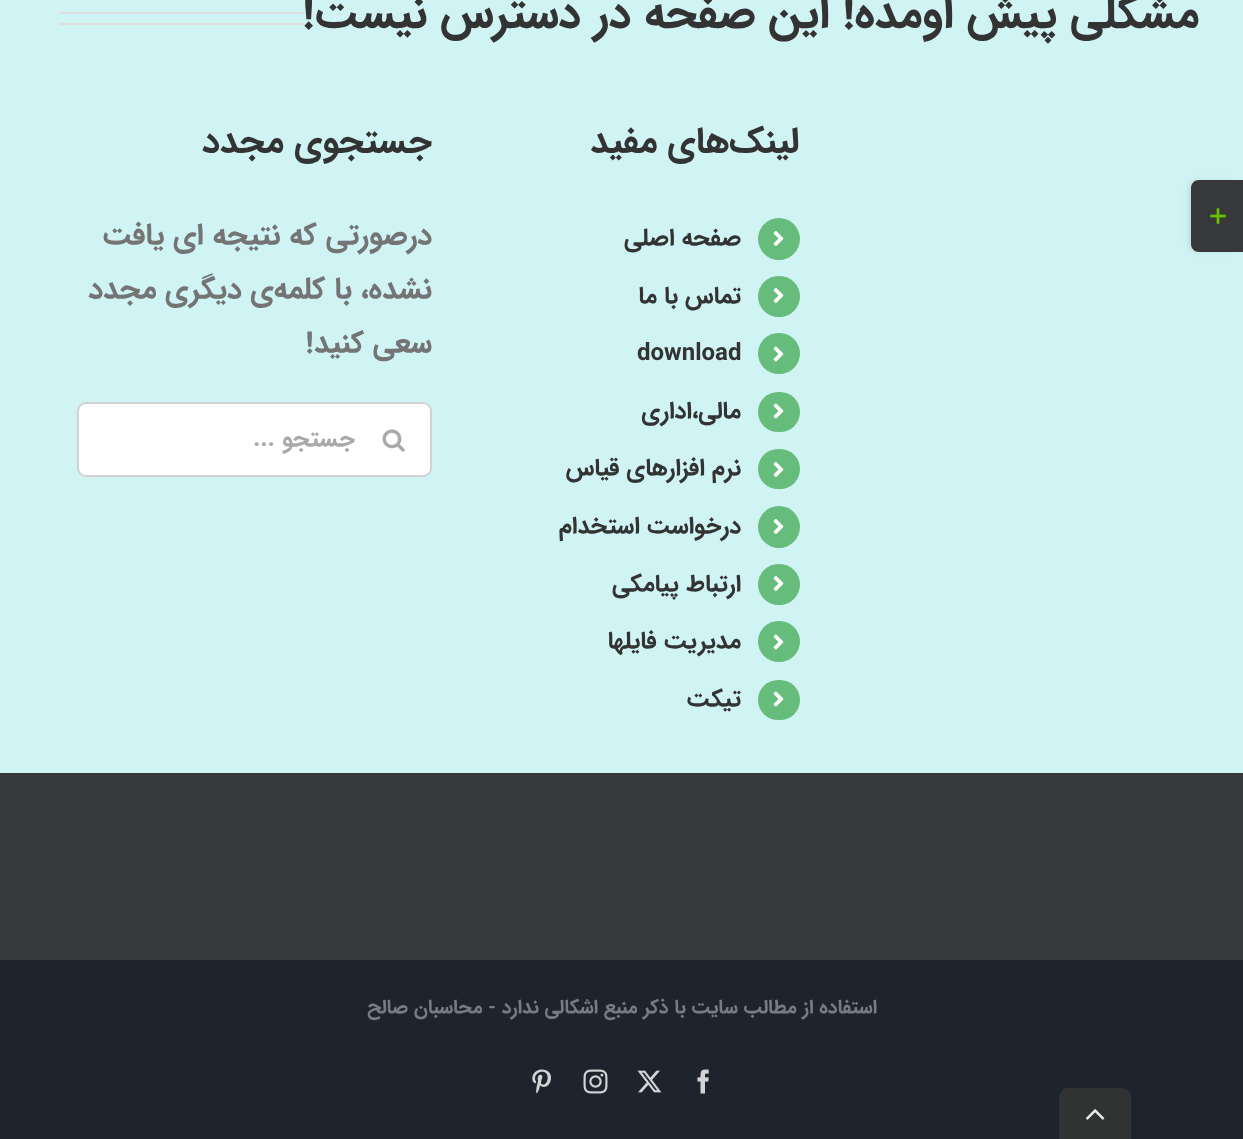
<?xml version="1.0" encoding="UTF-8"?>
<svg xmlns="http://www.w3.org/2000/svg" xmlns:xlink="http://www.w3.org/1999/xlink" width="1243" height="1139">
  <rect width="100%" height="100%" fill="#d0f4f4" />
  <rect x="1190" y="183" width="46" height="66" rx="5" fill="#000000" fill-opacity="0.14" filter="blur(4px)" />
  <path d="M 1199 180 h 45 v 72 h -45 c -4.5 0 -8 -3.5 -8 -8 v -56 c 0 -4.5 3.5 -8 8 -8 z" fill="#363839" />
  <image x="1210" y="208" width="16" height="16" xlink:href="image1.png" />
  <rect x="59" y="12" width="244" height="2" fill="#e0dede" />
  <rect x="59" y="23" width="244" height="2" fill="#e0dede" />
  <circle cx="779" cy="239" r="21" fill="#65bc7b" />
  <image x="773" y="231" width="11" height="15" xlink:href="image2.png" />
  <rect x="758" y="276" width="42" height="41" rx="20.5" fill="#65bc7b" />
  <image x="773" y="288" width="11" height="15" xlink:href="image2.png" />
  <rect x="758" y="333" width="42" height="41" rx="20.5" fill="#65bc7b" />
  <image x="773" y="346" width="11" height="16" xlink:href="image3.png" />
  <rect x="758" y="392" width="42" height="40" rx="20" fill="#65bc7b" />
  <image x="773" y="403" width="11" height="16" xlink:href="image3.png" />
  <rect x="758" y="449" width="42" height="40" rx="20" fill="#65bc7b" />
  <image x="773" y="462" width="11" height="15" xlink:href="image2.png" />
  <circle cx="779" cy="527" r="21" fill="#65bc7b" />
  <image x="773" y="519" width="11" height="15" xlink:href="image2.png" />
  <rect x="758" y="564" width="42" height="41" rx="20.5" fill="#65bc7b" />
  <image x="773" y="576" width="11" height="15" xlink:href="image2.png" />
  <rect x="758" y="621" width="42" height="41" rx="20.5" fill="#65bc7b" />
  <image x="773" y="634" width="11" height="16" xlink:href="image3.png" />
  <rect x="758" y="680" width="42" height="40" rx="20" fill="#65bc7b" />
  <image x="773" y="691" width="11" height="16" xlink:href="image3.png" />
  <rect x="78" y="403" width="353" height="73" rx="8" fill="#ffffff" stroke="#d2d2d2" stroke-width="2" />
  <image x="382" y="429" width="23" height="23" xlink:href="image4.png" />
  <rect y="773" width="1243" height="187" fill="#363839" />
  <rect y="960" width="1243" height="179" fill="#1d242d" />
  <image x="697" y="1069" width="12" height="25" xlink:href="image5.png" />
  <image x="637" y="1070" width="25" height="23" xlink:href="image6.png" />
  <image x="583" y="1069" width="25" height="25" xlink:href="image7.png" />
  <image x="532" y="1069" width="19" height="25" xlink:href="image8.png" />
  <path d="M 1068 1088 h 54 c 5 0 9 4 9 9 v 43 h -72 v -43 c 0 -5 4 -9 9 -9 z" fill="#313232" />
  <image x="1086" y="1109" width="19" height="11" xlink:href="image9.png" />
  <text x="1199" y="27" style="font-family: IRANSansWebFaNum; font-size: 45px; font-weight: bold; direction: rtl; fill: #333333">مشکلی پیش اومده! این صفحه در دسترس نیست!</text>
  <text x="799" y="152" style="font-family: IRANSansWebFaNum; font-size: 36px; font-weight: bold; direction: rtl; fill: #333333">لینک‌های مفید</text>
  <text x="741" y="245" style="font-family: IRANSansWebFaNum; font-size: 24px; font-weight: bold; direction: rtl; fill: #333333">صفحه اصلی</text>
  <text x="741" y="303" style="font-family: IRANSansWebFaNum; font-size: 24px; font-weight: bold; direction: rtl; fill: #333333">تماس با ما</text>
  <text x="637" y="360" style="font-family: IRANSansWebFaNum; font-size: 24px; font-weight: bold; fill: #333333">download</text>
  <text x="741" y="418" style="font-family: IRANSansWebFaNum; font-size: 24px; font-weight: bold; direction: rtl; fill: #333333">مالی،اداری</text>
  <text x="741" y="475" style="font-family: IRANSansWebFaNum; font-size: 24px; font-weight: bold; direction: rtl; fill: #333333">نرم افزارهای قیاس</text>
  <text x="741" y="533" style="font-family: IRANSansWebFaNum; font-size: 24px; font-weight: bold; direction: rtl; fill: #333333">درخواست استخدام</text>
  <text x="741" y="591" style="font-family: IRANSansWebFaNum; font-size: 24px; font-weight: bold; direction: rtl; fill: #333333">ارتباط پیامکی</text>
  <text x="741" y="648" style="font-family: IRANSansWebFaNum; font-size: 24px; font-weight: bold; direction: rtl; fill: #333333">مدیریت فایلها</text>
  <text x="741" y="706" style="font-family: IRANSansWebFaNum; font-size: 24px; font-weight: bold; direction: rtl; fill: #333333">تیکت</text>
  <text x="432" y="152" style="font-family: IRANSansWebFaNum; font-size: 36px; font-weight: bold; direction: rtl; fill: #333333">جستجوی مجدد</text>
  <text x="432" y="244" style="font-family: IRANSansWebFaNum; font-size: 30px; font-weight: bold; direction: rtl; fill: #747474">درصورتی که نتیجه ای یافت</text>
  <text x="432" y="298" style="font-family: IRANSansWebFaNum; font-size: 30px; font-weight: bold; direction: rtl; fill: #747474">نشده، با کلمه‌ی دیگری مجدد</text>
  <text x="432" y="352" style="font-family: IRANSansWebFaNum; font-size: 30px; font-weight: bold; direction: rtl; fill: #747474">سعی کنید!</text>
  <text x="355" y="446" style="font-family: IRANSansWebFaNum; font-size: 24px; font-weight: bold; direction: rtl; fill: #aaa9a9">جستجو ...</text>
  <text x="877" y="1013" style="font-family: IRANSansWebFaNum; font-size: 19.5px; font-weight: bold; direction: rtl; fill: #777c81">استفاده از مطالب سایت با ذکر منبع اشکالی ندارد - محاسبان صالح</text>
</svg>
